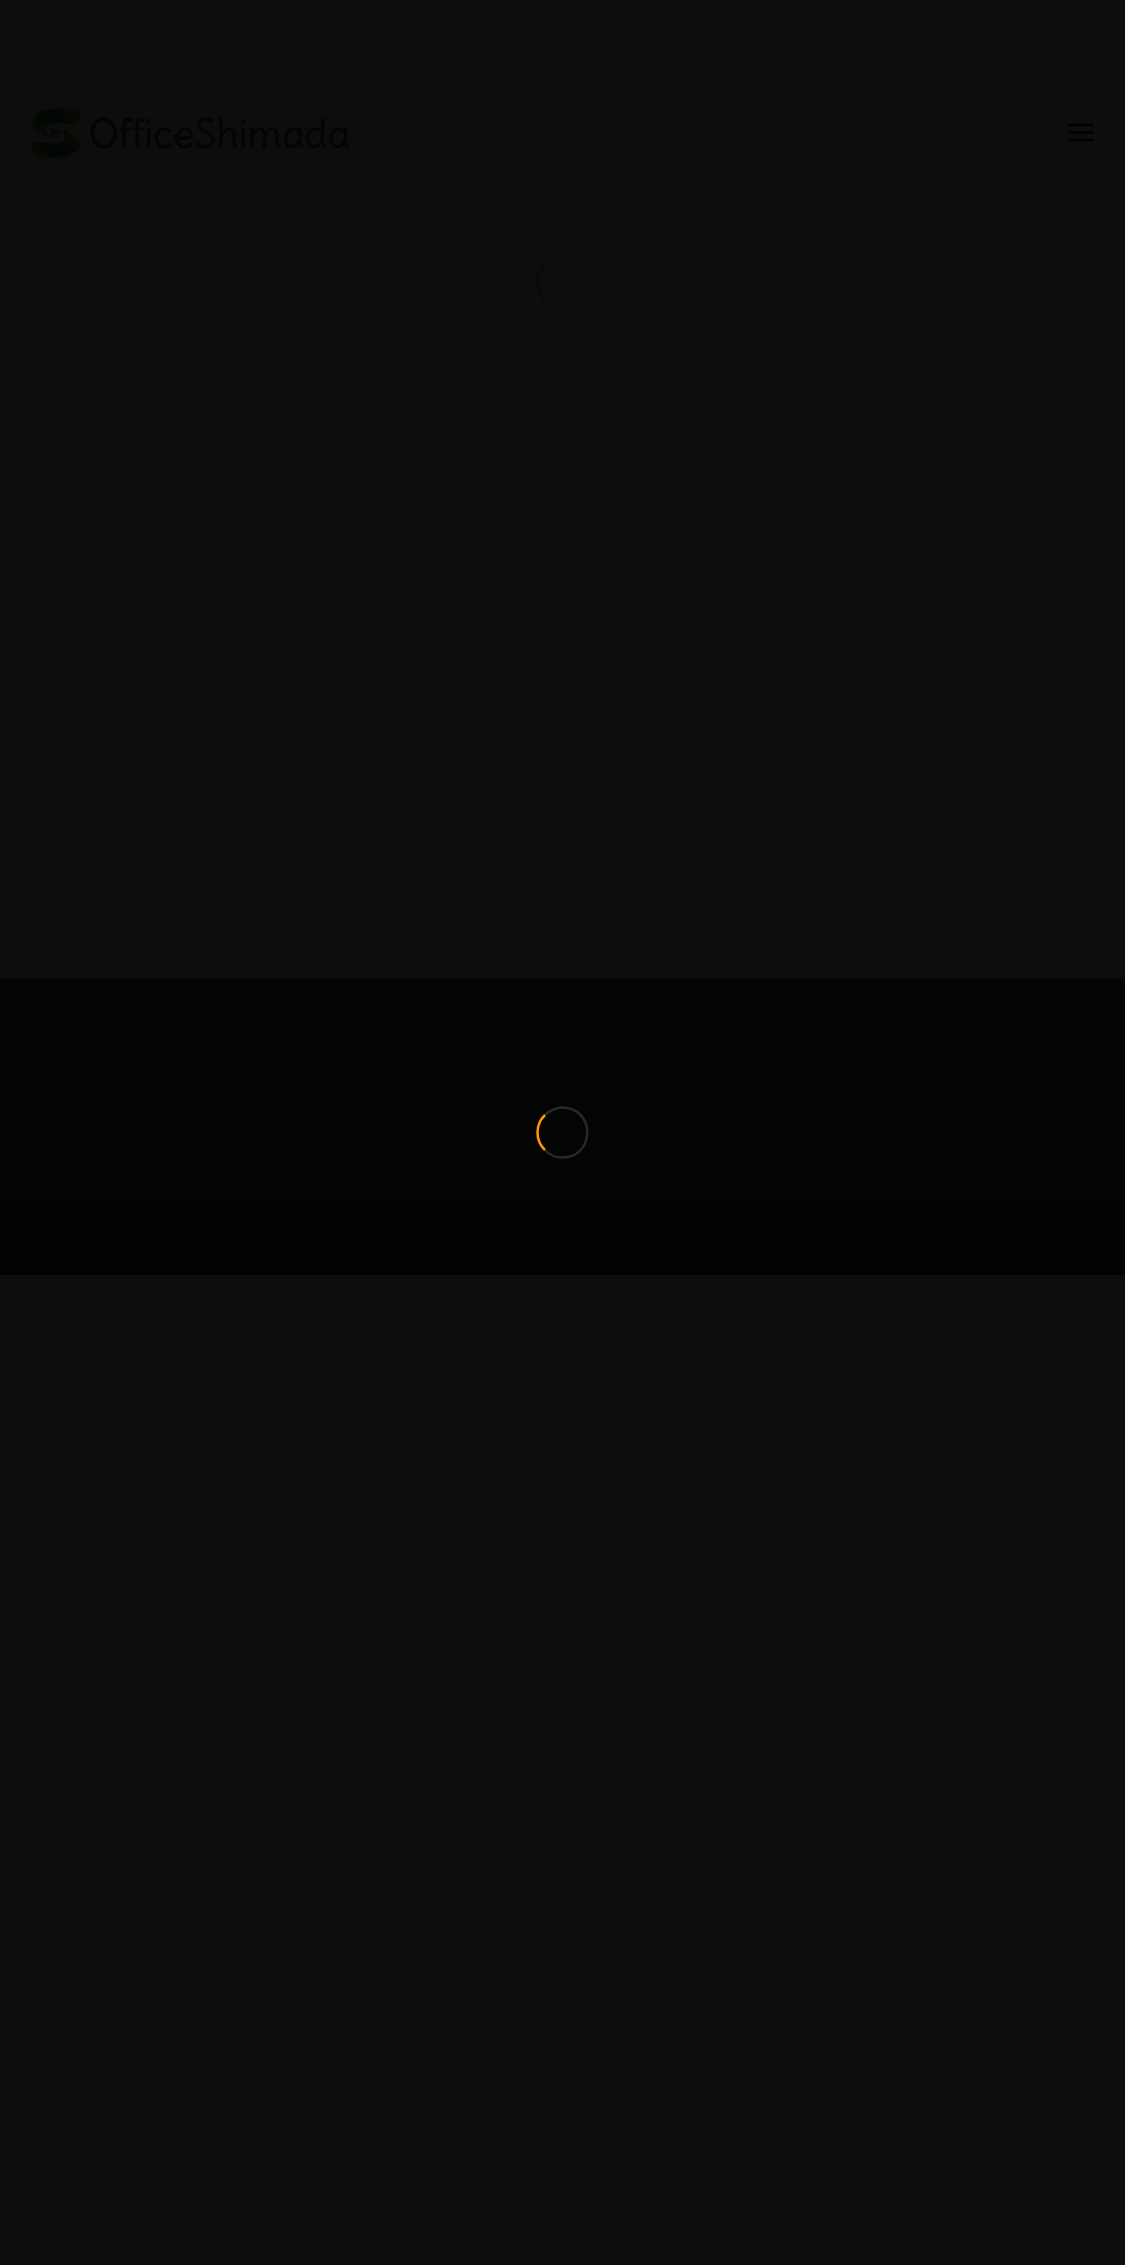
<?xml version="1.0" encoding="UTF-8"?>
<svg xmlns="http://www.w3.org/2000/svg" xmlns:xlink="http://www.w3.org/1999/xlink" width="1125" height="2265">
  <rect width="100%" height="100%" fill="#0d0d0d" />
  <image x="28" y="102" width="323" height="58" xlink:href="image1.png" />
  <image x="1068" y="123" width="26" height="19" xlink:href="image2.png" />
  <path d="M 545 300 c -10 -9.5 -10 -25.5 0 -35" fill="none" stroke="#0d0800" stroke-width="2.5" />
  <rect y="979" width="1125" height="224" fill="#040404" />
  <rect y="1203" width="1125" height="72" fill="#030303" />
  <path d="M 545 1115 c 5.5 -6 14.5 -8.5 22.5 -7 c 29 6 25 49.5 -5 49.5 c -6.5 0 -13 -2.5 -17.5 -7.5" fill="none" stroke="#292929" stroke-width="2.5" />
  <path d="M 545 1150 c -10 -9.5 -10 -25.5 0 -35" fill="none" stroke="#ff9900" stroke-width="2.5" />
</svg>
